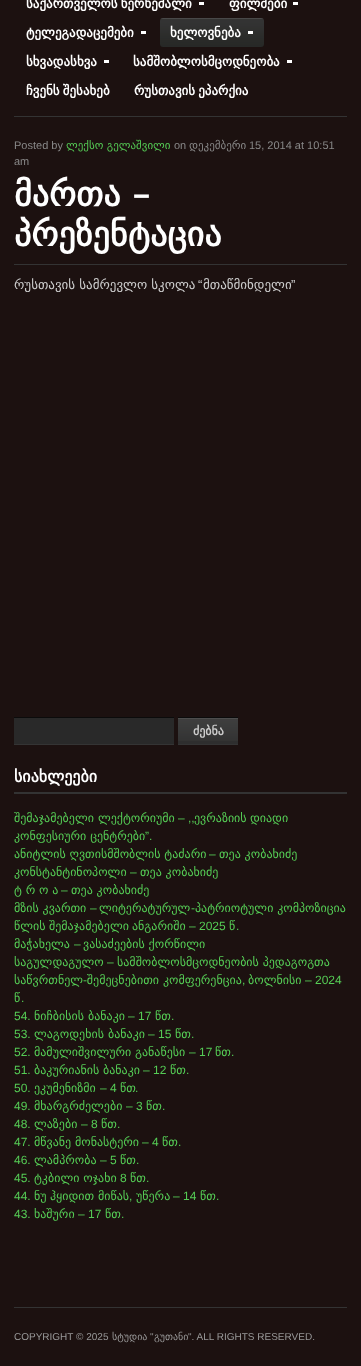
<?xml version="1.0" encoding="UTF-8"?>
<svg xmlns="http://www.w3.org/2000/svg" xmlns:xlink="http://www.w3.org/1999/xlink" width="361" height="1366">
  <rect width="100%" height="100%" fill="#1c1110" />
  <rect x="199" y="2" width="5" height="3" fill="#ffffff" />
  <rect x="293" y="2" width="5" height="3" fill="#ffffff" />
  <rect x="141" y="31" width="5" height="3" fill="#ffffff" />
  <image x="160" y="18" width="104" height="29" xlink:href="image1.png" />
  <rect x="248" y="31" width="5" height="3" fill="#ffffff" />
  <rect x="104" y="60" width="5" height="3" fill="#ffffff" />
  <rect x="287" y="60" width="5" height="3" fill="#ffffff" />
  <rect x="14" y="116" width="333" height="1" fill="#333333" />
  <rect x="14" y="264" width="333" height="1" fill="#333333" />
  <rect x="14" y="718" width="160" height="26" fill="#292929" />
  <rect x="14" y="717" width="160" height="1" fill="#0b0b0b" />
  <rect x="14" y="744" width="160" height="1" fill="#343434" />
  <rect x="178" y="741" width="60" height="3" fill="#2e2e2e" />
  <image x="178" y="718" width="60" height="23" xlink:href="image2.png" />
  <rect x="178" y="717" width="60" height="1" fill="#0b0b0b" />
  <rect x="178" y="744" width="60" height="1" fill="#343434" />
  <rect x="14" y="792" width="333" height="2" fill="#333333" />
  <rect x="14" y="1307" width="333" height="1" fill="#333333" />
  <text x="26" y="8" word-spacing="-1" style="font-family: DejaVu Sans; font-size: 13px; font-weight: bold; fill: #ffffff">საქართველოს ხერხემალი</text>
  <text x="229" y="8" style="font-family: DejaVu Sans; font-size: 13px; font-weight: bold; fill: #ffffff">ფილმები</text>
  <text x="26" y="37" style="font-family: DejaVu Sans; font-size: 13px; font-weight: bold; fill: #ffffff">ტელეგადაცემები</text>
  <text x="170" y="37" style="font-family: DejaVu Sans; font-size: 13px; font-weight: bold; fill: #ffffff">ხელოვნება</text>
  <text x="26" y="66" style="font-family: DejaVu Sans; font-size: 13px; font-weight: bold; fill: #ffffff">სხვადასხვა</text>
  <text x="133" y="66" style="font-family: DejaVu Sans; font-size: 13px; font-weight: bold; fill: #ffffff">სამშობლოსმცოდნეობა</text>
  <text x="26" y="95" word-spacing="-1" style="font-family: DejaVu Sans; font-size: 13px; font-weight: bold; fill: #ffffff">ჩვენს შესახებ</text>
  <text x="134" y="95" word-spacing="-1" style="font-family: DejaVu Sans; font-size: 13px; font-weight: bold; fill: #ffffff">რუსთავის ეპარქია</text>
  <text x="14" y="149" style="font-family: Liberation Sans; font-size: 11px; fill: #888888">Posted by</text>
  <text x="66" y="149" style="font-family: DejaVu Sans; font-size: 11px; fill: #55cc55">ლექსო გელაშვილი</text>
  <text x="174" y="149" style="font-family: Liberation Sans; font-size: 11px; fill: #888888">on</text>
  <text x="189" y="149" style="font-family: DejaVu Sans; font-size: 11px; fill: #888888">დეკემბერი</text>
  <text x="249" y="149" style="font-family: Liberation Sans; font-size: 11px; fill: #888888">15, 2014 at 10:51</text>
  <text x="14" y="165" style="font-family: Liberation Sans; font-size: 11px; fill: #888888">am</text>
  <text x="14" y="206" word-spacing="1" style="font-family: DejaVu Sans; font-size: 34px; font-weight: bold; fill: #ffffff">მართა –</text>
  <text x="14" y="246" style="font-family: DejaVu Sans; font-size: 34px; font-weight: bold; fill: #ffffff">პრეზენტაცია</text>
  <text x="14" y="289" style="font-family: DejaVu Sans; font-size: 13px; fill: #cccccc">რუსთავის სამრევლო სკოლა</text>
  <text x="198" y="289" style="font-family: Liberation Sans; font-size: 13px; fill: #cccccc">“</text>
  <text x="203" y="289" style="font-family: DejaVu Sans; font-size: 13px; fill: #cccccc">მთაწმინდელი</text>
  <text x="291" y="289" style="font-family: Liberation Sans; font-size: 13px; fill: #cccccc">”</text>
  <text x="193" y="735" style="font-family: DejaVu Sans; font-size: 12px; font-weight: bold; fill: #cccccc">ძებნა</text>
  <text x="14" y="782" style="font-family: DejaVu Sans; font-size: 16px; font-weight: bold; fill: #ffffff">სიახლეები</text>
  <text x="14" y="822" style="font-family: DejaVu Sans; font-size: 12px; fill: #55cc55">შემაჯამებელი</text>
  <text x="98" y="822" style="font-family: DejaVu Sans; font-size: 12px; fill: #55cc55">ლექტორიუმი</text>
  <text x="178" y="822" style="font-family: Liberation Sans; font-size: 12px; fill: #55cc55">– ,,</text>
  <text x="194" y="822" style="font-family: DejaVu Sans; font-size: 12px; fill: #55cc55">ევრაზიის</text>
  <text x="250" y="822" style="font-family: DejaVu Sans; font-size: 12px; fill: #55cc55">დიადი</text>
  <text x="14" y="840" style="font-family: DejaVu Sans; font-size: 12px; fill: #55cc55">კონფესიური ცენტრები</text>
  <text x="145" y="840" style="font-family: Liberation Sans; font-size: 12px; fill: #55cc55">”.</text>
  <text x="14" y="858" style="font-family: DejaVu Sans; font-size: 12px; fill: #55cc55">ანიტლის ღვთისმშობლის ტაძარი</text>
  <text x="209" y="858" style="font-family: Liberation Sans; font-size: 12px; fill: #55cc55">–</text>
  <text x="219" y="858" style="font-family: DejaVu Sans; font-size: 12px; fill: #55cc55">თეა კობახიძე</text>
  <text x="14" y="876" style="font-family: DejaVu Sans; font-size: 12px; fill: #55cc55">კონსტანტინოპოლი</text>
  <text x="130" y="876" style="font-family: Liberation Sans; font-size: 12px; fill: #55cc55">–</text>
  <text x="140" y="876" style="font-family: DejaVu Sans; font-size: 12px; fill: #55cc55">თეა კობახიძე</text>
  <text x="14" y="894" style="font-family: DejaVu Sans; font-size: 12px; fill: #55cc55">ტ რ ო ა</text>
  <text x="61" y="894" style="font-family: Liberation Sans; font-size: 12px; fill: #55cc55">–</text>
  <text x="71" y="894" style="font-family: DejaVu Sans; font-size: 12px; fill: #55cc55">თეა კობახიძე</text>
  <text x="14" y="912" style="font-family: DejaVu Sans; font-size: 12px; fill: #55cc55">მზის კვართი</text>
  <text x="90" y="912" style="font-family: Liberation Sans; font-size: 12px; fill: #55cc55">–</text>
  <text x="99" y="912" style="font-family: DejaVu Sans; font-size: 12px; fill: #55cc55">ლიტერატურულ</text>
  <text x="191" y="912" style="font-family: Liberation Sans; font-size: 12px; fill: #55cc55">-</text>
  <text x="195" y="912" style="font-family: DejaVu Sans; font-size: 12px; fill: #55cc55">პატრიოტული კომპოზიცია</text>
  <text x="14" y="930" style="font-family: DejaVu Sans; font-size: 12px; fill: #55cc55">წლის</text>
  <text x="49" y="930" style="font-family: DejaVu Sans; font-size: 12px; fill: #55cc55">შემაჯამებელი</text>
  <text x="132" y="930" style="font-family: DejaVu Sans; font-size: 12px; fill: #55cc55">ანგარიში</text>
  <text x="189" y="930" style="font-family: Liberation Sans; font-size: 12px; fill: #55cc55">– 2025</text>
  <text x="229" y="930" style="font-family: DejaVu Sans; font-size: 12px; fill: #55cc55">წ</text>
  <text x="236" y="930" style="font-family: Liberation Sans; font-size: 12px; fill: #55cc55">.</text>
  <text x="14" y="948" style="font-family: DejaVu Sans; font-size: 12px; fill: #55cc55">მაჭახელა</text>
  <text x="74" y="948" style="font-family: Liberation Sans; font-size: 12px; fill: #55cc55">–</text>
  <text x="83" y="948" style="font-family: DejaVu Sans; font-size: 12px; fill: #55cc55">ვასაძეების ქორწილი</text>
  <text x="14" y="966" style="font-family: DejaVu Sans; font-size: 12px; fill: #55cc55">საგულდაგულო</text>
  <text x="107" y="966" style="font-family: Liberation Sans; font-size: 12px; fill: #55cc55">–</text>
  <text x="117" y="966" style="font-family: DejaVu Sans; font-size: 12px; fill: #55cc55">სამშობლოსმცოდნეობის პედაგოგთა</text>
  <text x="14" y="984" style="font-family: DejaVu Sans; font-size: 12px; fill: #55cc55">საწვრთნელ შემეცნებითი</text>
  <text x="163" y="984" style="font-family: DejaVu Sans; font-size: 12px; fill: #55cc55">კომფერენცია</text>
  <text x="248" y="984" style="font-family: DejaVu Sans; font-size: 12px; fill: #55cc55">ბოლნისი</text>
  <text x="305" y="984" style="font-family: Liberation Sans; font-size: 12px; fill: #55cc55">– 2024</text>
  <text x="83" y="984" style="font-family: Liberation Sans; font-size: 12px; fill: #55cc55">-</text>
  <text x="242" y="984" style="font-family: Liberation Sans; font-size: 12px; fill: #55cc55">,</text>
  <text x="14" y="1002" style="font-family: DejaVu Sans; font-size: 12px; fill: #55cc55">წ</text>
  <text x="21" y="1002" style="font-family: Liberation Sans; font-size: 12px; fill: #55cc55">.</text>
  <text x="14" y="1020" style="font-family: Liberation Sans; font-size: 12px; fill: #55cc55">54.</text>
  <text x="34" y="1020" style="font-family: DejaVu Sans; font-size: 12px; fill: #55cc55">ნიჩბისის</text>
  <text x="88" y="1020" style="font-family: DejaVu Sans; font-size: 12px; fill: #55cc55">ბანაკი</text>
  <text x="128" y="1020" style="font-family: Liberation Sans; font-size: 12px; fill: #55cc55">– 17</text>
  <text x="155" y="1020" style="font-family: DejaVu Sans; font-size: 12px; fill: #55cc55">წთ</text>
  <text x="171" y="1020" style="font-family: Liberation Sans; font-size: 12px; fill: #55cc55">.</text>
  <text x="14" y="1038" style="font-family: Liberation Sans; font-size: 12px; fill: #55cc55">53.</text>
  <text x="34" y="1038" style="font-family: DejaVu Sans; font-size: 12px; fill: #55cc55">ლაგოდეხის</text>
  <text x="108" y="1038" style="font-family: DejaVu Sans; font-size: 12px; fill: #55cc55">ბანაკი</text>
  <text x="148" y="1038" style="font-family: Liberation Sans; font-size: 12px; fill: #55cc55">– 15</text>
  <text x="175" y="1038" style="font-family: DejaVu Sans; font-size: 12px; fill: #55cc55">წთ</text>
  <text x="191" y="1038" style="font-family: Liberation Sans; font-size: 12px; fill: #55cc55">.</text>
  <text x="14" y="1056" style="font-family: Liberation Sans; font-size: 12px; fill: #55cc55">52.</text>
  <text x="34" y="1056" style="font-family: DejaVu Sans; font-size: 12px; fill: #55cc55">მამულიშვილური</text>
  <text x="135" y="1056" style="font-family: DejaVu Sans; font-size: 12px; fill: #55cc55">განაწესი</text>
  <text x="189" y="1056" style="font-family: Liberation Sans; font-size: 12px; fill: #55cc55">– 17</text>
  <text x="215" y="1056" style="font-family: DejaVu Sans; font-size: 12px; fill: #55cc55">წთ</text>
  <text x="231" y="1056" style="font-family: Liberation Sans; font-size: 12px; fill: #55cc55">.</text>
  <text x="14" y="1074" style="font-family: Liberation Sans; font-size: 12px; fill: #55cc55">51.</text>
  <text x="34" y="1074" style="font-family: DejaVu Sans; font-size: 12px; fill: #55cc55">ბაკურიანის</text>
  <text x="103" y="1074" style="font-family: DejaVu Sans; font-size: 12px; fill: #55cc55">ბანაკი</text>
  <text x="143" y="1074" style="font-family: Liberation Sans; font-size: 12px; fill: #55cc55">– 12</text>
  <text x="170" y="1074" style="font-family: DejaVu Sans; font-size: 12px; fill: #55cc55">წთ</text>
  <text x="186" y="1074" style="font-family: Liberation Sans; font-size: 12px; fill: #55cc55">.</text>
  <text x="14" y="1092" style="font-family: Liberation Sans; font-size: 12px; fill: #55cc55">50.</text>
  <text x="34" y="1092" style="font-family: DejaVu Sans; font-size: 12px; fill: #55cc55">ეკუმენიზმი</text>
  <text x="100" y="1092" style="font-family: Liberation Sans; font-size: 12px; fill: #55cc55">– 4</text>
  <text x="120" y="1092" style="font-family: DejaVu Sans; font-size: 12px; fill: #55cc55">წთ</text>
  <text x="135" y="1092" style="font-family: Liberation Sans; font-size: 12px; fill: #55cc55">.</text>
  <text x="14" y="1110" style="font-family: Liberation Sans; font-size: 12px; fill: #55cc55">49.</text>
  <text x="34" y="1110" style="font-family: DejaVu Sans; font-size: 12px; fill: #55cc55">მხარგრძელები</text>
  <text x="126" y="1110" style="font-family: Liberation Sans; font-size: 12px; fill: #55cc55">– 3</text>
  <text x="146" y="1110" style="font-family: DejaVu Sans; font-size: 12px; fill: #55cc55">წთ</text>
  <text x="162" y="1110" style="font-family: Liberation Sans; font-size: 12px; fill: #55cc55">.</text>
  <text x="14" y="1128" style="font-family: Liberation Sans; font-size: 12px; fill: #55cc55">48.</text>
  <text x="34" y="1128" style="font-family: DejaVu Sans; font-size: 12px; fill: #55cc55">ლაზები</text>
  <text x="81" y="1128" style="font-family: Liberation Sans; font-size: 12px; fill: #55cc55">– 8</text>
  <text x="101" y="1128" style="font-family: DejaVu Sans; font-size: 12px; fill: #55cc55">წთ</text>
  <text x="117" y="1128" style="font-family: Liberation Sans; font-size: 12px; fill: #55cc55">.</text>
  <text x="14" y="1146" style="font-family: Liberation Sans; font-size: 12px; fill: #55cc55">47.</text>
  <text x="34" y="1146" style="font-family: DejaVu Sans; font-size: 12px; fill: #55cc55">მწვანე</text>
  <text x="75" y="1146" style="font-family: DejaVu Sans; font-size: 12px; fill: #55cc55">მონასტერი</text>
  <text x="142" y="1146" style="font-family: Liberation Sans; font-size: 12px; fill: #55cc55">– 4</text>
  <text x="162" y="1146" style="font-family: DejaVu Sans; font-size: 12px; fill: #55cc55">წთ</text>
  <text x="178" y="1146" style="font-family: Liberation Sans; font-size: 12px; fill: #55cc55">.</text>
  <text x="14" y="1164" style="font-family: Liberation Sans; font-size: 12px; fill: #55cc55">46.</text>
  <text x="34" y="1164" style="font-family: DejaVu Sans; font-size: 12px; fill: #55cc55">ლამპრობა</text>
  <text x="100" y="1164" style="font-family: Liberation Sans; font-size: 12px; fill: #55cc55">– 5</text>
  <text x="120" y="1164" style="font-family: DejaVu Sans; font-size: 12px; fill: #55cc55">წთ</text>
  <text x="136" y="1164" style="font-family: Liberation Sans; font-size: 12px; fill: #55cc55">.</text>
  <text x="14" y="1182" style="font-family: Liberation Sans; font-size: 12px; fill: #55cc55">45.</text>
  <text x="34" y="1182" style="font-family: DejaVu Sans; font-size: 12px; fill: #55cc55">ტკბილი ოჯახი</text>
  <text x="120" y="1182" style="font-family: Liberation Sans; font-size: 12px; fill: #55cc55">8</text>
  <text x="130" y="1182" style="font-family: DejaVu Sans; font-size: 12px; fill: #55cc55">წთ</text>
  <text x="146" y="1182" style="font-family: Liberation Sans; font-size: 12px; fill: #55cc55">.</text>
  <text x="14" y="1200" style="font-family: Liberation Sans; font-size: 12px; fill: #55cc55">44.</text>
  <text x="34" y="1200" style="font-family: DejaVu Sans; font-size: 12px; fill: #55cc55">ნუ</text>
  <text x="50" y="1200" style="font-family: DejaVu Sans; font-size: 12px; fill: #55cc55">ჰყიდით</text>
  <text x="98" y="1200" style="font-family: DejaVu Sans; font-size: 12px; fill: #55cc55">მიწას</text>
  <text x="129" y="1200" style="font-family: Liberation Sans; font-size: 12px; fill: #55cc55">,</text>
  <text x="136" y="1200" style="font-family: DejaVu Sans; font-size: 12px; fill: #55cc55">უწერა</text>
  <text x="173" y="1200" style="font-family: Liberation Sans; font-size: 12px; fill: #55cc55">– 14</text>
  <text x="200" y="1200" style="font-family: DejaVu Sans; font-size: 12px; fill: #55cc55">წთ</text>
  <text x="216" y="1200" style="font-family: Liberation Sans; font-size: 12px; fill: #55cc55">.</text>
  <text x="14" y="1218" style="font-family: Liberation Sans; font-size: 12px; fill: #55cc55">43.</text>
  <text x="34" y="1218" style="font-family: DejaVu Sans; font-size: 12px; fill: #55cc55">ხაშური</text>
  <text x="78" y="1218" style="font-family: Liberation Sans; font-size: 12px; fill: #55cc55">– 17</text>
  <text x="105" y="1218" style="font-family: DejaVu Sans; font-size: 12px; fill: #55cc55">წთ</text>
  <text x="121" y="1218" style="font-family: Liberation Sans; font-size: 12px; fill: #55cc55">.</text>
  <text x="14" y="1340" style="font-family: Liberation Sans; font-size: 10px; fill: #999999">COPYRIGHT © 2025</text>
  <text x="112" y="1340" style="font-family: DejaVu Sans; font-size: 10px; fill: #999999">სტუდია</text>
  <text x="150" y="1340" style="font-family: Liberation Sans; font-size: 10px; fill: #999999">"</text>
  <text x="154" y="1340" style="font-family: DejaVu Sans; font-size: 10px; fill: #999999">გუთანი</text>
  <text x="188" y="1340" style="font-family: Liberation Sans; font-size: 10px; fill: #999999">". ALL RIGHTS RESERVED.</text>
</svg>
